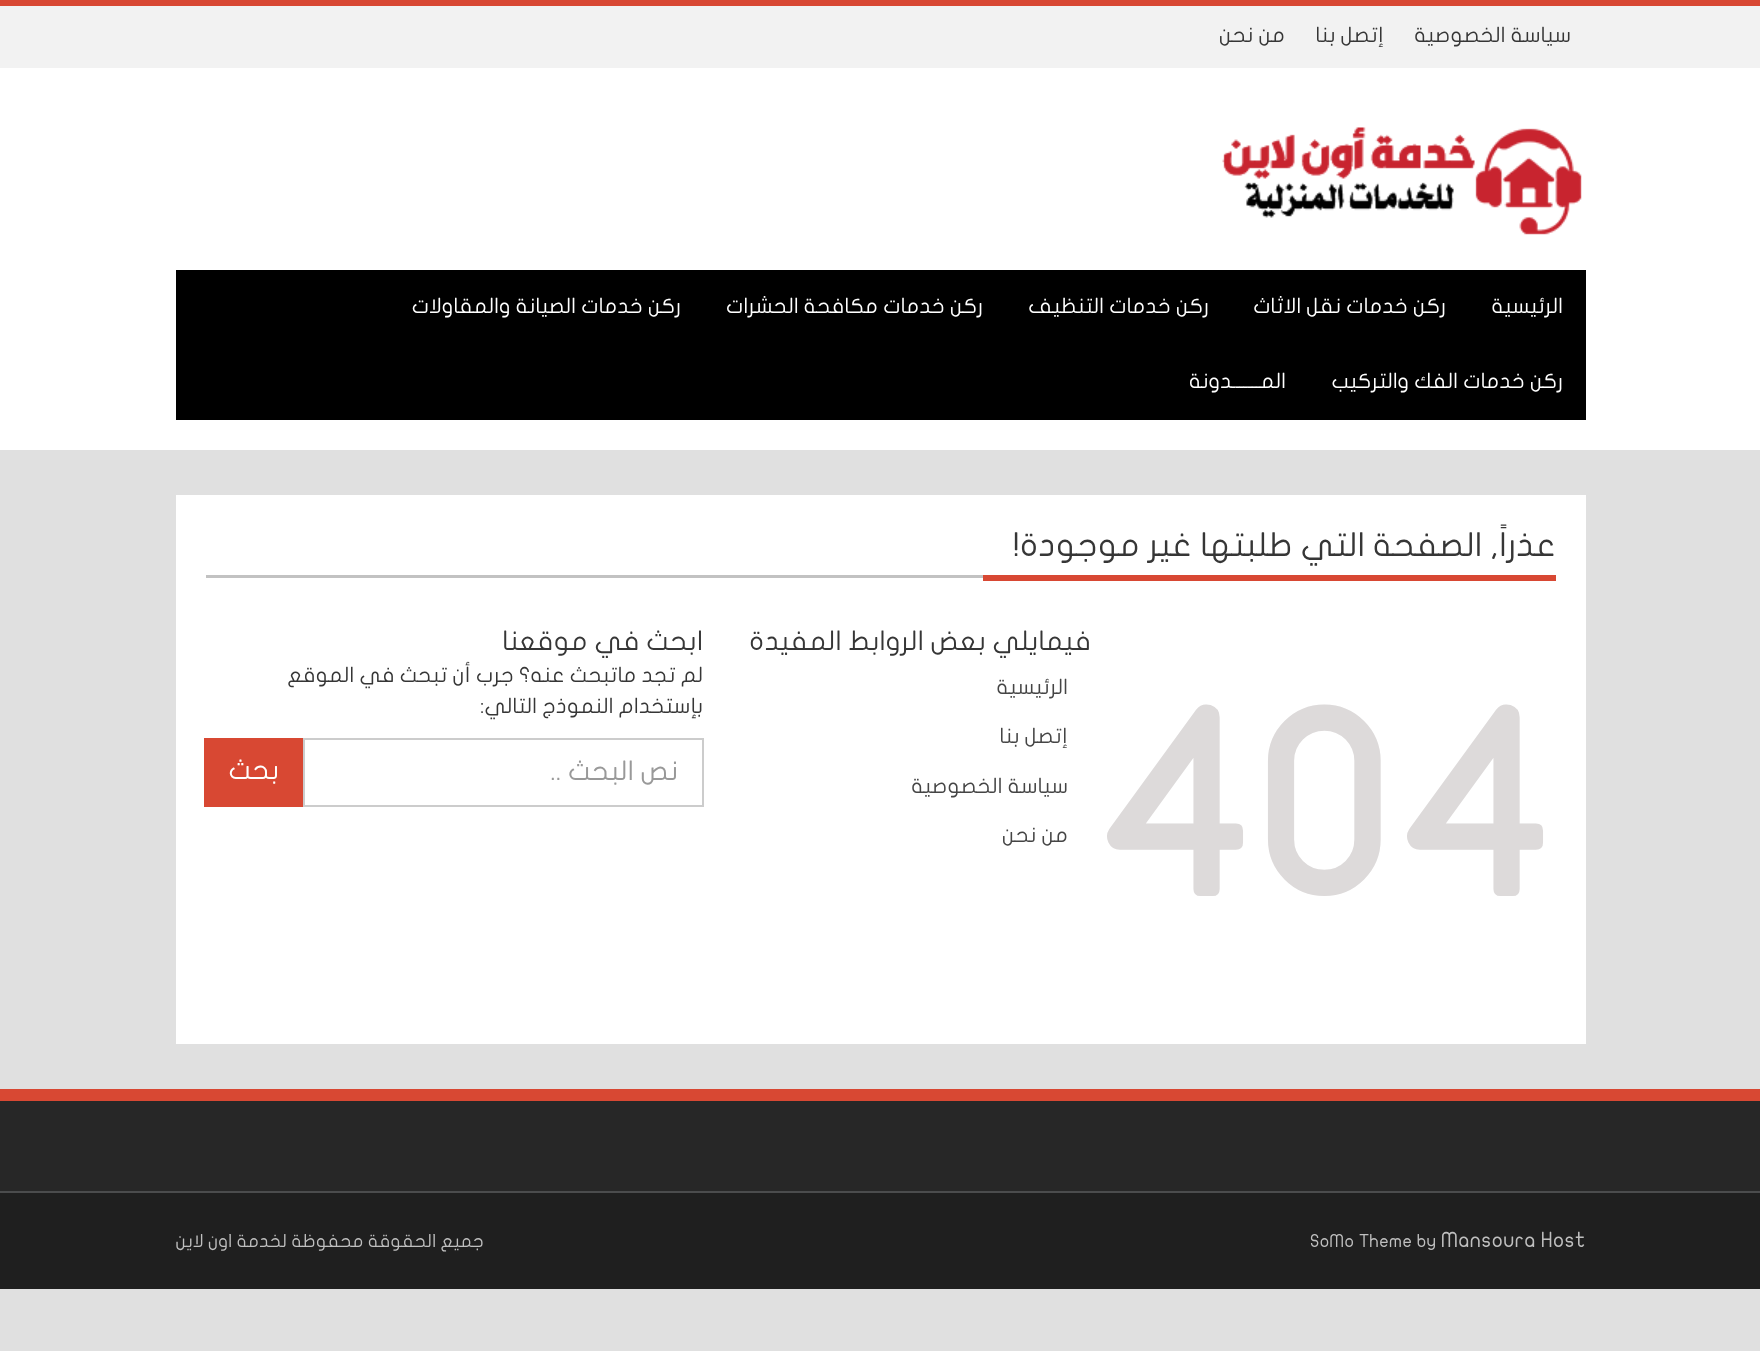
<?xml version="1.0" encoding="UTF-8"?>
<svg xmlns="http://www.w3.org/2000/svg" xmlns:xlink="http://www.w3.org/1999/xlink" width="1760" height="1351">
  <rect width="100%" height="100%" fill="#e0e0e0" />
  <rect y="6" width="1760" height="62" fill="#f2f2f2" />
  <rect width="1760" height="6" fill="#d84833" />
  <rect y="68" width="1760" height="382" fill="#ffffff" />
  <image x="1222" y="127" width="360" height="108" xlink:href="image1.png" />
  <rect x="176" y="270" width="1410" height="150" fill="#000000" />
  <rect x="176" y="495" width="1410" height="549" fill="#ffffff" />
  <rect x="206" y="575" width="777" height="3" fill="#c2c2c2" />
  <rect x="983" y="575" width="573" height="6" fill="#d84833" />
  <rect x="304" y="739" width="399" height="67" fill="none" stroke="#cccccc" stroke-width="2" />
  <rect x="204" y="738" width="99" height="69" fill="#d84833" />
  <rect y="1101" width="1760" height="90" fill="#272727" />
  <rect y="1089" width="1760" height="12" fill="#d84833" />
  <rect y="1193" width="1760" height="96" fill="#1f1f1f" />
  <rect y="1191" width="1760" height="2" fill="#4b4c4d" />
  <text x="1571" y="42" style="font-family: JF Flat; font-size: 21px; direction: rtl; fill: #363636">سياسة الخصوصية</text>
  <text x="1384" y="42" style="font-family: JF Flat; font-size: 21px; direction: rtl; fill: #363636">إتصل بنا</text>
  <text x="1285" y="42" style="font-family: JF Flat; font-size: 21px; direction: rtl; fill: #363636">من نحن</text>
  <text x="1563" y="313" style="font-family: JF Flat; font-size: 21px; direction: rtl; fill: #ffffff">الرئيسية</text>
  <text x="1446" y="313" style="font-family: JF Flat; font-size: 21px; direction: rtl; fill: #ffffff">ركن خدمات نقل الاثاث</text>
  <text x="1209" y="313" style="font-family: JF Flat; font-size: 21px; direction: rtl; fill: #ffffff">ركن خدمات التنظيف</text>
  <text x="983" y="313" style="font-family: JF Flat; font-size: 21px; direction: rtl; fill: #ffffff">ركن خدمات مكافحة الحشرات</text>
  <text x="681" y="313" style="font-family: JF Flat; font-size: 21px; direction: rtl; fill: #ffffff">ركن خدمات الصيانة والمقاولات</text>
  <text x="1563" y="388" style="font-family: JF Flat; font-size: 21px; direction: rtl; fill: #ffffff">ركن خدمات الفك والتركيب</text>
  <text x="1286" y="388" style="font-family: JF Flat; font-size: 21px; direction: rtl; fill: #ffffff">المـــــــدونة</text>
  <text x="1556" y="556" style="font-family: JF Flat; font-size: 33px; direction: rtl; fill: #363636">عذراً, الصفحة التي طلبتها غير موجودة!</text>
  <text x="1093" y="896" style="font-family: JF Flat; font-size: 255px; font-weight: bold; fill: #dddada">404</text>
  <text x="1091" y="650" style="font-family: JF Flat; font-size: 27px; direction: rtl; fill: #363636">فيمايلي بعض الروابط المفيدة</text>
  <text x="1068" y="694" style="font-family: JF Flat; font-size: 21px; direction: rtl; fill: #454545">الرئيسية</text>
  <text x="1068" y="743" style="font-family: JF Flat; font-size: 21px; direction: rtl; fill: #454545">إتصل بنا</text>
  <text x="1068" y="793" style="font-family: JF Flat; font-size: 21px; direction: rtl; fill: #454545">سياسة الخصوصية</text>
  <text x="1068" y="842" style="font-family: JF Flat; font-size: 21px; direction: rtl; fill: #454545">من نحن</text>
  <text x="703" y="650" style="font-family: JF Flat; font-size: 27px; direction: rtl; fill: #363636">ابحث في موقعنا</text>
  <text x="703" y="682" style="font-family: JF Flat; font-size: 21px; direction: rtl; fill: #363636">لم تجد ماتبحث عنه؟ جرب أن تبحث في الموقع</text>
  <text x="703" y="713" style="font-family: JF Flat; font-size: 21px; direction: rtl; fill: #363636">بإستخدام النموذج التالي:</text>
  <text x="678" y="780" style="font-family: JF Flat; font-size: 27px; direction: rtl; fill: #999999">نص البحث ..</text>
  <text x="279" y="779" style="font-family: JF Flat; font-size: 27px; direction: rtl; fill: #ffffff">بحث</text>
  <text x="1441" y="1247" style="font-family: JF Flat; font-size: 21px; fill: #bfbfbf">Mansoura Host</text>
  <text x="1310" y="1247" style="font-family: JF Flat; font-size: 18px; fill: #bfbfbf">SoMo Theme by</text>
  <text x="484" y="1247" style="font-family: JF Flat; font-size: 18px; direction: rtl; fill: #bfbfbf">جميع الحقوقة محفوظة لخدمة اون لاين</text>
</svg>
